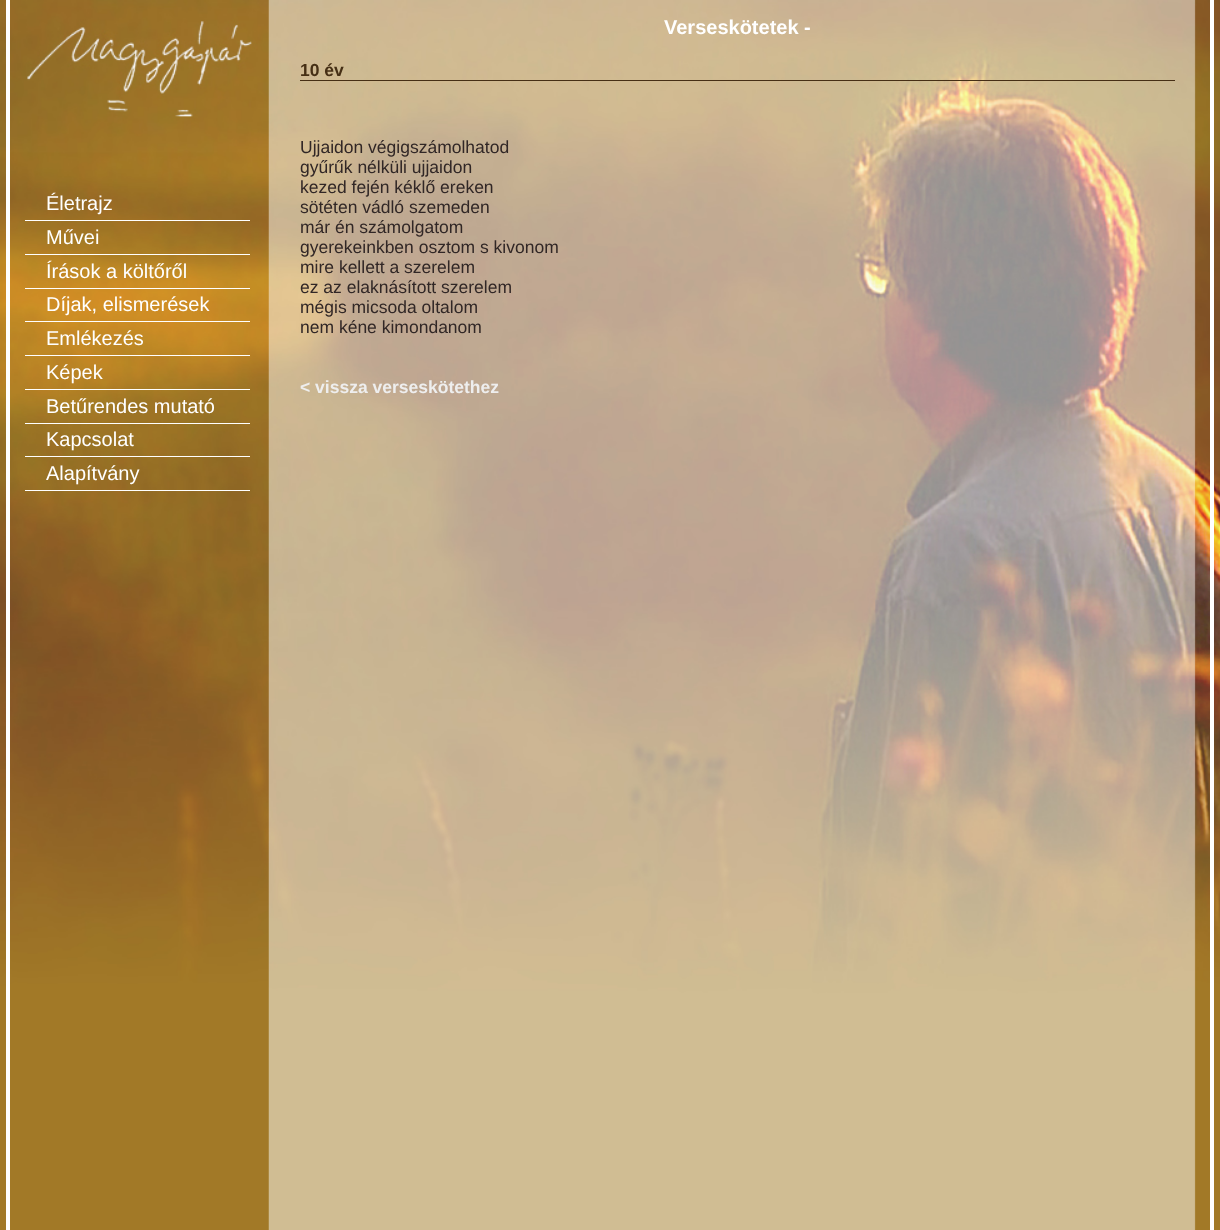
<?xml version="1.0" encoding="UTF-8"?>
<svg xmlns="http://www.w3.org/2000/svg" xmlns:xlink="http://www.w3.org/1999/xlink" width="1220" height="1230">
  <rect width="100%" height="100%" fill="#ffffff" />
  <image x="0" y="0" width="1220" height="1230" xlink:href="image1.png" />
  <rect x="1210" width="4" height="1230" fill="#ffffff" />
  <rect x="6" width="4" height="1230" fill="#ffffff" />
  <rect x="300" y="80" width="875" height="1" fill="#462f15" />
  <rect x="25" y="220" width="225" height="1" fill="#ffffff" />
  <rect x="25" y="254" width="225" height="1" fill="#ffffff" />
  <rect x="25" y="288" width="225" height="1" fill="#ffffff" />
  <rect x="25" y="321" width="225" height="1" fill="#ffffff" />
  <rect x="25" y="355" width="225" height="1" fill="#ffffff" />
  <rect x="25" y="389" width="225" height="1" fill="#ffffff" />
  <rect x="25" y="423" width="225" height="1" fill="#ffffff" />
  <rect x="25" y="456" width="225" height="1" fill="#ffffff" />
  <rect x="25" y="490" width="225" height="1" fill="#ffffff" />
  <text x="664" y="34" style="font-family: Liberation Sans; font-size: 20px; font-weight: bold; fill: #ffffff">Verseskötetek -</text>
  <text x="300" y="76" style="font-family: Liberation Sans; font-size: 17.5px; font-weight: bold; fill: #462f15">10 év</text>
  <text x="46" y="210" style="font-family: Liberation Sans; font-size: 20px; fill: #ffffff">Életrajz</text>
  <text x="46" y="244" style="font-family: Liberation Sans; font-size: 20px; fill: #ffffff">Művei</text>
  <text x="46" y="278" style="font-family: Liberation Sans; font-size: 20px; fill: #ffffff">Írások a költőről</text>
  <text x="46" y="311" style="font-family: Liberation Sans; font-size: 20px; fill: #ffffff">Díjak, elismerések</text>
  <text x="46" y="345" style="font-family: Liberation Sans; font-size: 20px; fill: #ffffff">Emlékezés</text>
  <text x="46" y="379" style="font-family: Liberation Sans; font-size: 20px; fill: #ffffff">Képek</text>
  <text x="46" y="413" style="font-family: Liberation Sans; font-size: 20px; fill: #ffffff">Betűrendes mutató</text>
  <text x="46" y="446" style="font-family: Liberation Sans; font-size: 20px; fill: #ffffff">Kapcsolat</text>
  <text x="46" y="480" style="font-family: Liberation Sans; font-size: 20px; fill: #ffffff">Alapítvány</text>
  <text x="300" y="153" style="font-family: Liberation Sans; font-size: 17.5px; fill: #312726">Ujjaidon végigszámolhatod</text>
  <text x="300" y="173" style="font-family: Liberation Sans; font-size: 17.5px; fill: #312726">gyűrűk nélküli ujjaidon</text>
  <text x="300" y="193" style="font-family: Liberation Sans; font-size: 17.5px; fill: #312726">kezed fején kéklő ereken</text>
  <text x="300" y="213" style="font-family: Liberation Sans; font-size: 17.5px; fill: #312726">sötéten vádló szemeden</text>
  <text x="300" y="233" style="font-family: Liberation Sans; font-size: 17.5px; fill: #312726">már én számolgatom</text>
  <text x="300" y="253" style="font-family: Liberation Sans; font-size: 17.5px; fill: #312726">gyerekeinkben osztom s kivonom</text>
  <text x="300" y="273" style="font-family: Liberation Sans; font-size: 17.5px; fill: #312726">mire kellett a szerelem</text>
  <text x="300" y="293" style="font-family: Liberation Sans; font-size: 17.5px; fill: #312726">ez az elaknásított szerelem</text>
  <text x="300" y="313" style="font-family: Liberation Sans; font-size: 17.5px; fill: #312726">mégis micsoda oltalom</text>
  <text x="300" y="333" style="font-family: Liberation Sans; font-size: 17.5px; fill: #312726">nem kéne kimondanom</text>
  <text x="300" y="393" style="font-family: Liberation Sans; font-size: 17.5px; font-weight: bold; fill: #eeeeee">&lt; vissza verseskötethez</text>
</svg>
